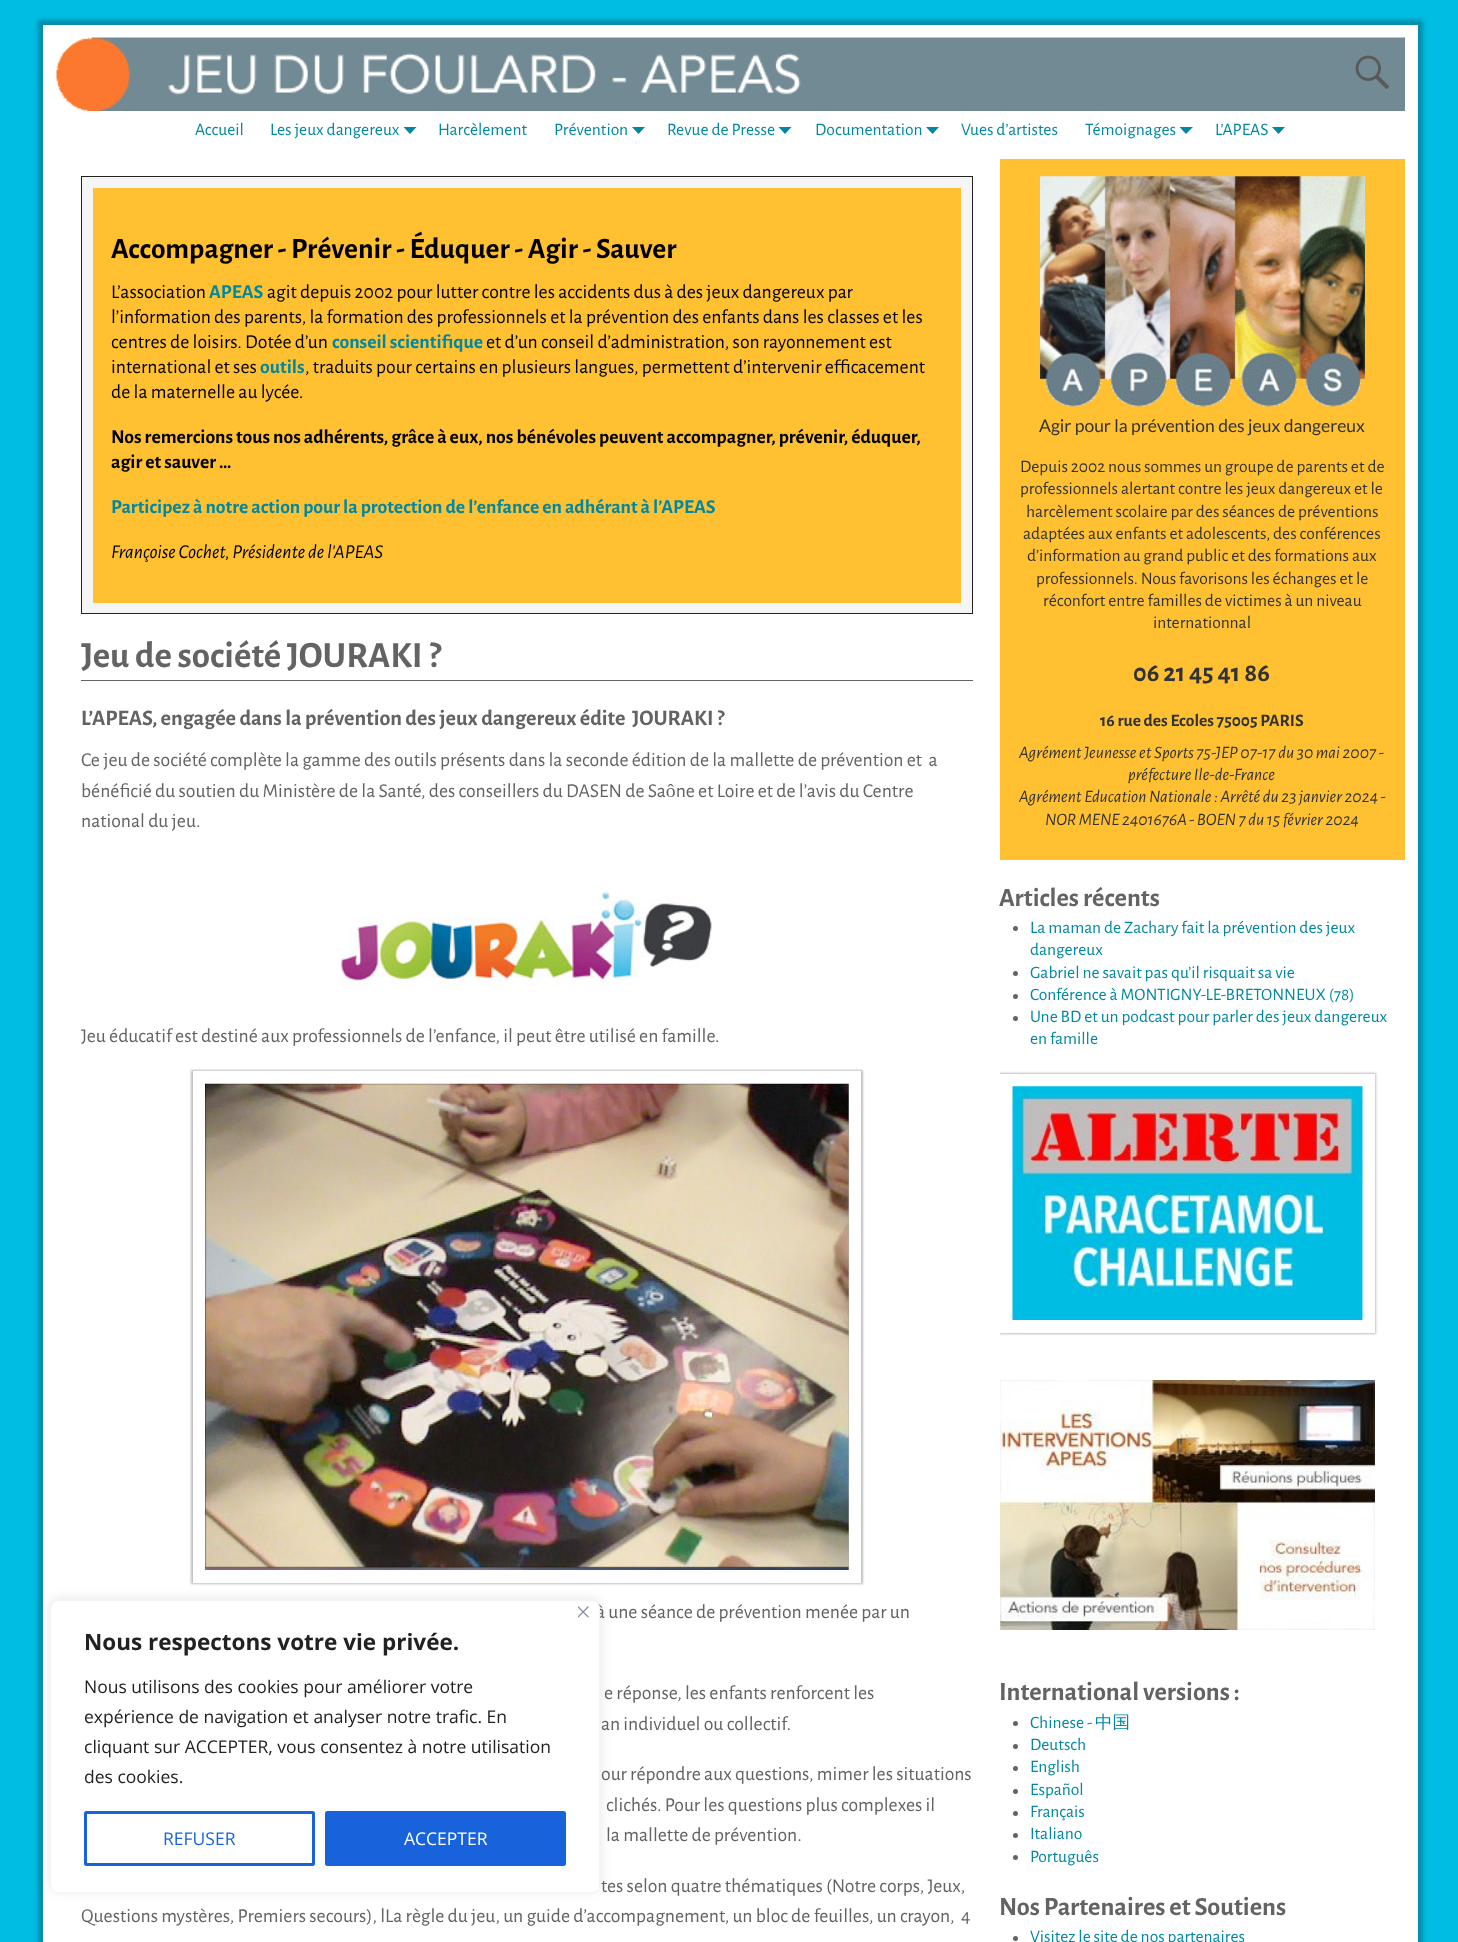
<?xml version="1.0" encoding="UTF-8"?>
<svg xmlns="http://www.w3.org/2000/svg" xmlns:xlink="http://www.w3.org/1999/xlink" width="1458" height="1942">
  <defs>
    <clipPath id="clip1"><path d="M 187 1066 h 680 v 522 h -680 z m 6 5 h 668 v 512 h -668 z" clip-rule="evenodd" /></clipPath>
    <clipPath id="clip2"><rect x="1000" y="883" width="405" height="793" /></clipPath>
    <clipPath id="clip3"><path d="M 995 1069 h 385 v 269 h -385 z m 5 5 h 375 v 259 h -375 z" clip-rule="evenodd" /></clipPath>
  </defs>
  <rect width="100%" height="100%" fill="#00bde3" />
  <rect x="38" y="20" width="1385" height="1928" fill="#000000" fill-opacity="0.25" filter="blur(2px)" />
  <rect x="43" y="25" width="1375" height="1917" fill="#ffffff" />
  <image x="56" y="37" width="1349" height="74" xlink:href="image1.png" />
  <image x="1355" y="55" width="35" height="35" xlink:href="image2.png" />
  <path d="M 403.5 127 h 13 l -6.5 7 z" fill="#0088a3" />
  <path d="M 632 127 h 13 l -6.5 7 z" fill="#0088a3" />
  <path d="M 778.5 127 h 13 l -6.5 7 z" fill="#0088a3" />
  <path d="M 926 127 h 13 l -6.5 7 z" fill="#0088a3" />
  <path d="M 1179.5 127 h 13.5 l -7 7 z" fill="#0088a3" />
  <path d="M 1272 127 h 13 l -6.5 7 z" fill="#0088a3" />
  <rect x="81.5" y="176.5" width="891" height="437" fill="#f5f5f5" stroke="#222222" />
  <rect x="93" y="188" width="868" height="415" fill="#ffc132" />
  <rect x="81" y="680" width="892" height="1" fill="#636363" />
  <image x="340" y="888" width="372" height="100" xlink:href="image3.png" />
  <g clip-path="url(#clip1)">
    <rect x="191" y="1070" width="672" height="514" fill="#000000" fill-opacity="0.25" filter="blur(1px)" />
  </g>
  <image x="205" y="1083" width="644" height="487" xlink:href="image4.png" />
  <rect x="1000" y="159" width="405" height="701" fill="#ffc132" />
  <image x="1040" y="176" width="325" height="231" xlink:href="image5.png" />
  <circle cx="1015.5" cy="928.5" r="2.5" fill="#636363" />
  <circle cx="1015.5" cy="973.5" r="2.5" fill="#636363" />
  <circle cx="1015.5" cy="996.5" r="2.5" fill="#636363" />
  <circle cx="1015.5" cy="1018.5" r="2.5" fill="#636363" />
  <g clip-path="url(#clip2)">
    <g clip-path="url(#clip3)">
      <rect x="999" y="1073" width="377" height="261" fill="#000000" fill-opacity="0.25" filter="blur(1px)" />
    </g>
  </g>
  <image x="1012" y="1086" width="351" height="234" xlink:href="image6.png" />
  <image x="1000" y="1380" width="375" height="250" xlink:href="image7.png" />
  <circle cx="1015.5" cy="1723.5" r="2.5" fill="#636363" />
  <circle cx="1015.5" cy="1746.5" r="2.5" fill="#636363" />
  <circle cx="1015.5" cy="1768.5" r="2.5" fill="#636363" />
  <circle cx="1015.5" cy="1791.5" r="2.5" fill="#636363" />
  <circle cx="1015.5" cy="1813.5" r="2.5" fill="#636363" />
  <circle cx="1015.5" cy="1835.5" r="2.5" fill="#636363" />
  <circle cx="1015.5" cy="1857.5" r="2.5" fill="#636363" />
  <circle cx="1015.5" cy="1938.5" r="2.5" fill="#636363" />
  <rect x="50" y="1599" width="550" height="292" rx="8" fill="#acabab" fill-opacity="0.3" filter="blur(6px)" />
  <text x="195" y="135" style="font-family: Alegreya Sans; font-size: 17.5px; fill: #0088a3">Accueil</text>
  <text x="270" y="135" style="font-family: Alegreya Sans; font-size: 17.5px; fill: #0088a3">Les jeux dangereux</text>
  <text x="438" y="135" style="font-family: Alegreya Sans; font-size: 17.5px; fill: #0088a3">Harcèlement</text>
  <text x="554" y="135" style="font-family: Alegreya Sans; font-size: 17.5px; fill: #0088a3">Prévention</text>
  <text x="667" y="135" style="font-family: Alegreya Sans; font-size: 17.5px; fill: #0088a3">Revue de Presse</text>
  <text x="815" y="135" style="font-family: Alegreya Sans; font-size: 17.5px; fill: #0088a3">Documentation</text>
  <text x="961" y="135" style="font-family: Alegreya Sans; font-size: 17.5px; fill: #0088a3">Vues d’artistes</text>
  <text x="1085" y="135" style="font-family: Alegreya Sans; font-size: 17.5px; fill: #0088a3">Témoignages</text>
  <text x="1215" y="135" style="font-family: Alegreya Sans; font-size: 17.5px; fill: #0088a3">L’APEAS</text>
  <text x="111" y="258" style="font-family: Alegreya Sans; font-size: 29.5px; font-weight: bold; fill: #000000">Accompagner - Prévenir - Éduquer - Agir - Sauver</text>
  <text x="111" y="298" style="font-family: Alegreya Sans; font-size: 19.7px; fill: #000000">L’association</text>
  <text x="209" y="298" style="font-family: Alegreya Sans; font-size: 19.7px; font-weight: bold; fill: #0088a3">APEAS</text>
  <text x="267" y="298" style="font-family: Alegreya Sans; font-size: 19.7px; fill: #000000">agit depuis 2002 pour lutter contre les accidents dus à des jeux dangereux par</text>
  <text x="111" y="323" style="font-family: Alegreya Sans; font-size: 19.7px; fill: #000000">l’information des parents, la formation des professionnels et la prévention des enfants dans les classes et les</text>
  <text x="111" y="348" style="font-family: Alegreya Sans; font-size: 19.7px; fill: #000000">centres de loisirs. Dotée d’un</text>
  <text x="332" y="348" style="font-family: Alegreya Sans; font-size: 19.7px; font-weight: bold; fill: #0088a3">conseil scientifique</text>
  <text x="486" y="348" style="font-family: Alegreya Sans; font-size: 19.7px; fill: #000000">et d’un conseil d’administration, son rayonnement est</text>
  <text x="111" y="373" style="font-family: Alegreya Sans; font-size: 19.7px; fill: #000000">international et ses</text>
  <text x="260" y="373" style="font-family: Alegreya Sans; font-size: 19.7px; font-weight: bold; fill: #0088a3">outils</text>
  <text x="305" y="373" style="font-family: Alegreya Sans; font-size: 19.7px; fill: #000000">, traduits pour certains en plusieurs langues, permettent d’intervenir efficacement</text>
  <text x="111" y="398" style="font-family: Alegreya Sans; font-size: 19.7px; fill: #000000">de la maternelle au lycée.</text>
  <text x="111" y="443" style="font-family: Alegreya Sans; font-size: 19.7px; font-weight: bold; fill: #000000">Nos remercions tous nos adhérents, grâce à eux, nos bénévoles peuvent accompagner, prévenir, éduquer,</text>
  <text x="111" y="468" style="font-family: Alegreya Sans; font-size: 19.7px; font-weight: bold; fill: #000000">agir et sauver …</text>
  <text x="111" y="513" style="font-family: Alegreya Sans; font-size: 19.7px; font-weight: bold; fill: #0088a3">Participez à notre action pour la protection de l’enfance en adhérant à l’APEAS</text>
  <text x="111" y="558" style="font-family: Alegreya Sans; font-size: 19.7px; font-style: italic; fill: #000000">Françoise Cochet, Présidente de l'APEAS</text>
  <text x="81" y="667" style="font-family: Alegreya Sans; font-size: 37px; font-weight: bold; fill: #636363">Jeu de société JOURAKI ?</text>
  <text x="81" y="725" style="font-family: Alegreya Sans; font-size: 22.15px; font-weight: bold; fill: #636363" xml:space="preserve">L’APEAS, engagée dans la prévention des jeux dangereux édite  JOURAKI ?</text>
  <text x="81" y="766" style="font-family: Alegreya Sans; font-size: 19.7px; fill: #636363" xml:space="preserve">Ce jeu de société complète la gamme des outils présents dans la seconde édition de la mallette de prévention et  a</text>
  <text x="81" y="797" style="font-family: Alegreya Sans; font-size: 19.7px; fill: #636363">bénéficié du soutien du Ministère de la Santé, des conseillers du DASEN de Saône et Loire et de l’avis du Centre</text>
  <text x="81" y="827" style="font-family: Alegreya Sans; font-size: 19.7px; fill: #636363">national du jeu.</text>
  <text x="81" y="1042" style="font-family: Alegreya Sans; font-size: 19.7px; fill: #636363">Jeu éducatif est destiné aux professionnels de l’enfance, il peut être utilisé en famille.</text>
  <text x="596" y="1618" style="font-family: Alegreya Sans; font-size: 19.7px; fill: #636363">à une séance de prévention menée par un</text>
  <text x="604" y="1699" style="font-family: Alegreya Sans; font-size: 19.7px; fill: #636363">e réponse, les enfants renforcent les</text>
  <text x="601" y="1730" style="font-family: Alegreya Sans; font-size: 19.7px; fill: #636363">an individuel ou collectif.</text>
  <text x="601" y="1780" style="font-family: Alegreya Sans; font-size: 19.7px; fill: #636363">our répondre aux questions, mimer les situations</text>
  <text x="606" y="1811" style="font-family: Alegreya Sans; font-size: 19.7px; fill: #636363">clichés. Pour les questions plus complexes il</text>
  <text x="606" y="1841" style="font-family: Alegreya Sans; font-size: 19.7px; fill: #636363">la mallette de prévention.</text>
  <text x="601" y="1892" style="font-family: Alegreya Sans; font-size: 19.7px; fill: #636363">tes selon quatre thématiques (Notre corps, Jeux,</text>
  <text x="81" y="1922" style="font-family: Alegreya Sans; font-size: 19.7px; fill: #636363" xml:space="preserve">Questions mystères, Premiers secours), lLa règle du jeu, un guide d’accompagnement, un bloc de feuilles, un crayon,  4</text>
  <text x="1039" y="432" style="font-family: Lato; font-size: 17.5px; fill: #333333">Agir pour la prévention des jeux dangereux</text>
  <text x="1020" y="472" style="font-family: Alegreya Sans; font-size: 17.5px; fill: #333333">Depuis 2002 nous sommes un groupe de parents et de</text>
  <text x="1020" y="494" style="font-family: Alegreya Sans; font-size: 17.5px; fill: #333333">professionnels alertant contre les jeux dangereux et le</text>
  <text x="1026" y="517" style="font-family: Alegreya Sans; font-size: 17.5px; fill: #333333">harcèlement scolaire par des séances de préventions</text>
  <text x="1023" y="539" style="font-family: Alegreya Sans; font-size: 17.5px; fill: #333333">adaptées aux enfants et adolescents, des conférences</text>
  <text x="1027" y="561" style="font-family: Alegreya Sans; font-size: 17.5px; fill: #333333">d’information au grand public et des formations aux</text>
  <text x="1036" y="584" style="font-family: Alegreya Sans; font-size: 17.5px; fill: #333333">professionnels. Nous favorisons les échanges et le</text>
  <text x="1043" y="606" style="font-family: Alegreya Sans; font-size: 17.5px; fill: #333333">réconfort entre familles de victimes à un niveau</text>
  <text x="1153" y="628" style="font-family: Alegreya Sans; font-size: 17.5px; fill: #333333">internationnal</text>
  <text x="1133" y="681" style="font-family: Alegreya Sans; font-size: 26.25px; font-weight: bold; fill: #333333">06 21 45 41 86</text>
  <text x="1100" y="726" style="font-family: Alegreya Sans; font-size: 17.5px; font-weight: bold; fill: #333333">16 rue des Ecoles 75005 PARIS</text>
  <text x="1019" y="758" style="font-family: Alegreya Sans; font-size: 17.5px; font-style: italic; fill: #333333">Agrément Jeunesse et Sports 75-JEP 07-17 du 30 mai 2007 -</text>
  <text x="1128" y="780" style="font-family: Alegreya Sans; font-size: 17.5px; font-style: italic; fill: #333333">préfecture Ile-de-France</text>
  <text x="1019" y="802" style="font-family: Alegreya Sans; font-size: 17.5px; font-style: italic; fill: #333333">Agrément Education Nationale : Arrêté du 23 janvier 2024 -</text>
  <text x="1045" y="825" style="font-family: Alegreya Sans; font-size: 17.5px; font-style: italic; fill: #333333">NOR MENE 2401676A - BOEN 7 du 15 février 2024</text>
  <text x="999" y="906" style="font-family: Alegreya Sans; font-size: 26.25px; font-weight: bold; fill: #636363">Articles récents</text>
  <text x="1030" y="933" style="font-family: Alegreya Sans; font-size: 17.5px; fill: #0088a3">La maman de Zachary fait la prévention des jeux</text>
  <text x="1030" y="955" style="font-family: Alegreya Sans; font-size: 17.5px; fill: #0088a3">dangereux</text>
  <text x="1030" y="978" style="font-family: Alegreya Sans; font-size: 17.5px; fill: #0088a3">Gabriel ne savait pas qu’il risquait sa vie</text>
  <text x="1030" y="1000" style="font-family: Alegreya Sans; font-size: 17.5px; fill: #0088a3">Conférence à MONTIGNY-LE-BRETONNEUX (78)</text>
  <text x="1030" y="1022" style="font-family: Alegreya Sans; font-size: 17.5px; fill: #0088a3">Une BD et un podcast pour parler des jeux dangereux</text>
  <text x="1030" y="1044" style="font-family: Alegreya Sans; font-size: 17.5px; fill: #0088a3">en famille</text>
  <text x="999" y="1700" style="font-family: Alegreya Sans; font-size: 26.25px; font-weight: bold; fill: #636363">International versions :</text>
  <text x="1030" y="1728" style="font-family: Alegreya Sans; font-size: 17.5px; fill: #0088a3">Chinese -</text>
  <text x="1095" y="1728" style="font-family: WenQuanYi Zen Hei; font-size: 17.5px; font-weight: 500; fill: #0088a3">中国</text>
  <text x="1030" y="1750" style="font-family: Alegreya Sans; font-size: 17.5px; fill: #0088a3">Deutsch</text>
  <text x="1030" y="1772" style="font-family: Alegreya Sans; font-size: 17.5px; fill: #0088a3">English</text>
  <text x="1030" y="1795" style="font-family: Alegreya Sans; font-size: 17.5px; fill: #0088a3">Español</text>
  <text x="1030" y="1817" style="font-family: Alegreya Sans; font-size: 17.5px; fill: #0088a3">Français</text>
  <text x="1030" y="1839" style="font-family: Alegreya Sans; font-size: 17.5px; fill: #0088a3">Italiano</text>
  <text x="1030" y="1862" style="font-family: Alegreya Sans; font-size: 17.5px; fill: #0088a3">Português</text>
  <text x="999" y="1915" style="font-family: Alegreya Sans; font-size: 26.25px; font-weight: bold; fill: #636363">Nos Partenaires et Soutiens</text>
  <text x="1030" y="1942" style="font-family: Alegreya Sans; font-size: 17.5px; fill: #0088a3">Visitez le site de nos partenaires</text>
  <rect x="50.5" y="1600.5" width="549" height="292" rx="7.5" fill="#ffffff" stroke="#f4f4f4" />
  <image x="578" y="1606" width="11" height="12" xlink:href="image8.png" />
  <text x="84" y="1650" style="font-family: Open Sans; font-size: 22.5px; font-weight: bold; fill: #212121">Nous respectons votre vie privée.</text>
  <text x="84" y="1693" style="font-family: Open Sans; font-size: 17.5px; fill: #212121">Nous utilisons des cookies pour améliorer votre</text>
  <text x="84" y="1723" style="font-family: Open Sans; font-size: 17.5px; fill: #212121">expérience de navigation et analyser notre trafic. En</text>
  <text x="84" y="1753" style="font-family: Open Sans; font-size: 17.5px; fill: #212121">cliquant sur ACCEPTER, vous consentez à notre utilisation</text>
  <text x="84" y="1783" style="font-family: Open Sans; font-size: 17.5px; fill: #212121">des cookies.</text>
  <rect x="85.5" y="1812.5" width="228" height="52" rx="1" fill="none" stroke="#1863dc" stroke-width="3" />
  <text x="163" y="1845" style="font-family: Open Sans; font-size: 17.5px; fill: #1863dc">REFUSER</text>
  <rect x="326.5" y="1812.5" width="238" height="52" rx="1" fill="#1863dc" stroke="#1863dc" stroke-width="3" />
  <text x="404" y="1845" style="font-family: Open Sans; font-size: 17.5px; fill: #ffffff">ACCEPTER</text>
</svg>
